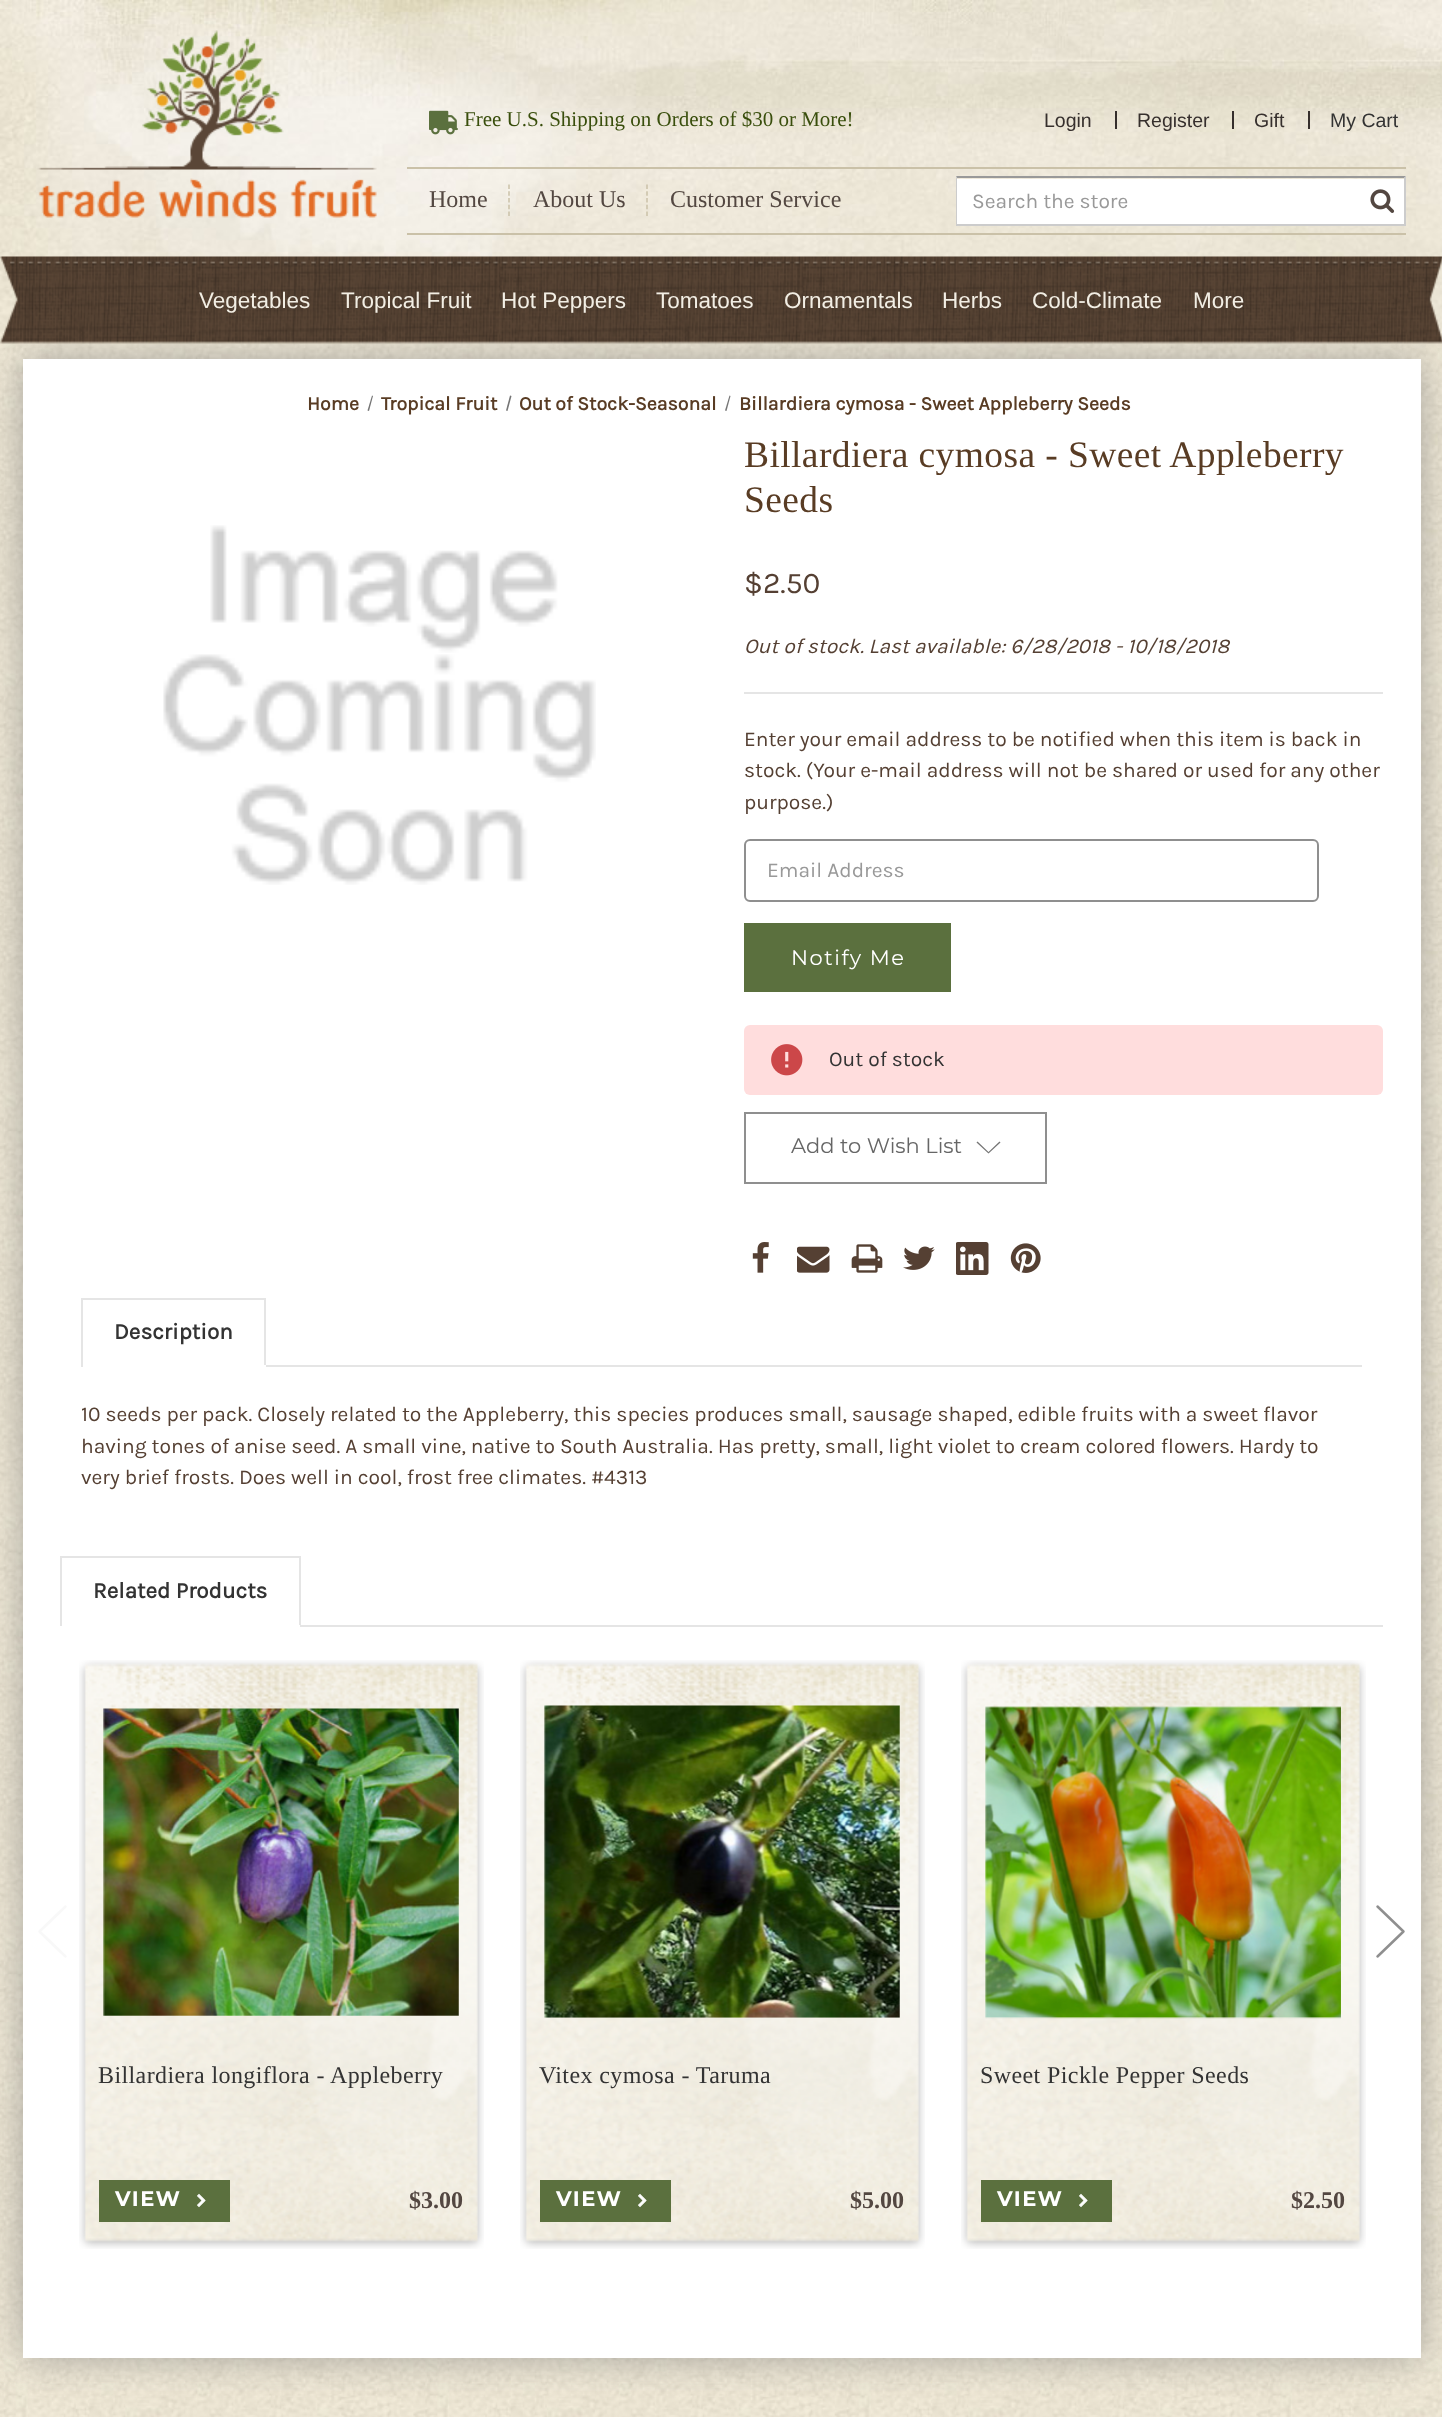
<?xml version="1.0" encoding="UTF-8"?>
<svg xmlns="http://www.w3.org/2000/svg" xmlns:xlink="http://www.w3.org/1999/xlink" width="1442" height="2417">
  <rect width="100%" height="100%" fill="#ffffff" />
  <image x="0" y="343" width="1442" height="2074" xlink:href="image1.png" />
  <rect x="23" y="359" width="1398" height="1999" fill="#777777" fill-opacity="0.6" filter="blur(19px)" />
  <image x="0" y="0" width="1442" height="344" xlink:href="image2.png" />
  <image x="37" y="30" width="340" height="188" xlink:href="image3.png" />
  <image x="429" y="110" width="29" height="25" xlink:href="image4.png" />
  <rect x="1115" y="111" width="2" height="18" fill="#362f2d" />
  <rect x="1232" y="111" width="2" height="18" fill="#362f2d" />
  <rect x="1308" y="111" width="2" height="18" fill="#362f2d" />
  <rect x="407" y="167" width="999" height="2" fill="#cac1a8" />
  <rect x="407" y="233" width="999" height="2" fill="#cac1a8" />
  <path d="M 509 184.5 v 31.5" fill="none" stroke="#cac1a8" stroke-width="1.5" stroke-dasharray="4.5 2.25" />
  <path d="M 647 184.5 v 31.5" fill="none" stroke="#cac1a8" stroke-width="1.5" stroke-dasharray="4.5 2.25" />
  <path d="M 956 176 h 450 l -2 2 h -447 z" fill="#999999" />
  <path d="M 1406 176 v 49 l -2 -1 v -46 z" fill="#cccccc" />
  <rect x="956" y="224" width="450" height="2" fill="#cccccc" />
  <path d="M 956 225 v -49 l 1 2 v 46 z" fill="#cccccc" />
  <rect x="957" y="179" width="447" height="45" fill="#ffffff" />
  <image x="1370" y="189" width="25" height="24" xlink:href="image5.png" />
  <image x="0" y="256" width="1442" height="88" xlink:href="image6.png" />
  <rect x="23" y="359" width="1398" height="1999" fill="#ffffff" />
  <path d="M 372 395.5 l 1 0.5 l -4 15 l -1.5 -0.5 z" fill="#757575" />
  <path d="M 510 395.5 l 1.5 0.5 l -4 15 l -1.5 -0.5 z" fill="#757575" />
  <path d="M 729.5 395.5 l 1 0.5 l -4 15 l -1.5 -0.5 z" fill="#757575" />
  <image x="163" y="525" width="433" height="360" xlink:href="image7.png" />
  <rect x="744" y="692" width="639" height="2" fill="#e5e5e5" />
  <rect x="745" y="840" width="573" height="61" rx="5" fill="none" stroke="#8f8f8f" stroke-width="2" />
  <rect x="744" y="923" width="207" height="69" fill="#5b703e" />
  <rect x="744" y="1025" width="639" height="70" rx="6" fill="#ffdddd" />
  <image x="771" y="1044" width="32" height="32" xlink:href="image8.png" />
  <rect x="745" y="1113" width="301" height="70" fill="none" stroke="#8f8f8f" stroke-width="2" />
  <path d="M 988.5 1152 l 11 -10.5 l 1 1 l -12 11 l -12 -11 l 1 -1 z" fill="#757575" fill-rule="evenodd" />
  <image x="752" y="1242" width="17" height="31" xlink:href="image9.png" />
  <image x="797" y="1246" width="33" height="27" xlink:href="image10.png" />
  <image x="851" y="1244" width="32" height="29" xlink:href="image11.png" />
  <image x="903" y="1246" width="32" height="24" xlink:href="image12.png" />
  <image x="956" y="1242" width="33" height="33" xlink:href="image13.png" />
  <image x="1010" y="1243" width="31" height="30" xlink:href="image14.png" />
  <rect x="266" y="1365" width="1096" height="2" fill="#e5e5e5" />
  <rect x="81" y="1298" width="185" height="2" fill="#e5e5e5" />
  <rect x="264" y="1298" width="2" height="69" fill="#e5e5e5" />
  <rect x="264" y="1365" width="2" height="2" fill="#ffffff" />
  <rect x="81" y="1298" width="2" height="69" fill="#e5e5e5" />
  <rect x="300" y="1625" width="1083" height="2" fill="#e5e5e5" />
  <rect x="60" y="1556" width="240" height="2" fill="#e5e5e5" />
  <rect x="299" y="1556" width="2" height="70" fill="#e5e5e5" />
  <rect x="299" y="1625" width="1" height="1" fill="#ffffff" />
  <rect x="60" y="1556" width="2" height="70" fill="#e5e5e5" />
  <path d="M 65.5 1906.5 l -26 25 l 26 25" fill="none" stroke="#f8f8f8" stroke-width="2.5" stroke-linecap="round" stroke-linejoin="round" />
  <path d="M 1377.5 1906.5 l 26 25 l -26 25" fill="none" stroke="#8f8f8f" stroke-width="2.5" stroke-linecap="round" stroke-linejoin="round" />
  <image x="79" y="1660" width="405" height="589" xlink:href="image15.png" />
  <image x="103" y="1708" width="356" height="308" xlink:href="image16.png" />
  <rect x="99" y="2180" width="131" height="42" fill="#5b703e" />
  <image x="197" y="2193" width="9" height="15" xlink:href="image17.png" />
  <image x="520" y="1660" width="405" height="589" xlink:href="image15.png" />
  <image x="544" y="1705" width="356" height="313" xlink:href="image18.png" />
  <rect x="540" y="2180" width="131" height="42" fill="#5b703e" />
  <image x="638" y="2193" width="9" height="15" xlink:href="image17.png" />
  <image x="961" y="1660" width="405" height="589" xlink:href="image15.png" />
  <image x="985" y="1706" width="356" height="313" xlink:href="image19.png" />
  <rect x="981" y="2180" width="131" height="42" fill="#5b703e" />
  <image x="1079" y="2193" width="9" height="15" xlink:href="image17.png" />
  <text x="464" y="126" style="font-family: Liberation Serif; font-size: 21px; fill: #394e0c">Free U.S. Shipping on Orders of $30 or More!</text>
  <text x="1044" y="127" style="font-family: Liberation Sans; font-size: 19.5px; fill: #362f2d">Login</text>
  <text x="1137" y="127" style="font-family: Liberation Sans; font-size: 19.5px; fill: #362f2d">Register</text>
  <text x="1254" y="127" style="font-family: Liberation Sans; font-size: 19.5px; fill: #362f2d">Gift</text>
  <text x="1330" y="127" style="font-family: Liberation Sans; font-size: 19.5px; fill: #333333">My Cart</text>
  <text x="429" y="207" style="font-family: Liberation Serif; font-size: 24px; fill: #534741">Home</text>
  <text x="533" y="207" style="font-family: Liberation Serif; font-size: 24px; fill: #534741">About Us</text>
  <text x="670" y="207" style="font-family: Liberation Serif; font-size: 24px; fill: #534741">Customer Service</text>
  <text x="972" y="208" style="font-family: Karla; font-size: 21px; fill: #999999">Search the store</text>
  <text x="199" y="308" style="font-family: Liberation Sans; font-size: 22.5px; fill: #f2eee4">Vegetables</text>
  <text x="341" y="308" style="font-family: Liberation Sans; font-size: 22.5px; fill: #f2eee4">Tropical Fruit</text>
  <text x="501" y="308" style="font-family: Liberation Sans; font-size: 22.5px; fill: #f2eee4">Hot Peppers</text>
  <text x="656" y="308" style="font-family: Liberation Sans; font-size: 22.5px; fill: #f2eee4">Tomatoes</text>
  <text x="784" y="308" style="font-family: Liberation Sans; font-size: 22.5px; fill: #f2eee4">Ornamentals</text>
  <text x="942" y="308" style="font-family: Liberation Sans; font-size: 22.5px; fill: #f2eee4">Herbs</text>
  <text x="1032" y="308" style="font-family: Liberation Sans; font-size: 22.5px; fill: #f2eee4">Cold-Climate</text>
  <text x="1193" y="308" style="font-family: Liberation Sans; font-size: 22.5px; fill: #f2eee4">More</text>
  <text x="307" y="410" style="font-family: Karla; font-size: 19.5px; font-weight: bold; fill: #593c24">Home</text>
  <text x="381" y="410" style="font-family: Karla; font-size: 19.5px; font-weight: bold; fill: #593c24">Tropical Fruit</text>
  <text x="519" y="410" style="font-family: Karla; font-size: 19.5px; font-weight: bold; fill: #593c24">Out of Stock-Seasonal</text>
  <text x="739" y="410" style="font-family: Karla; font-size: 19.5px; font-weight: bold; fill: #593c24">Billardiera cymosa - Sweet Appleberry Seeds</text>
  <text x="744" y="467" style="font-family: Liberation Serif; font-size: 37.5px; letter-spacing: 0.4px; fill: #593c24">Billardiera cymosa - Sweet Appleberry</text>
  <text x="744" y="512" style="font-family: Liberation Serif; font-size: 37.5px; letter-spacing: 0.4px; fill: #593c24">Seeds</text>
  <text x="744" y="593" style="font-family: Karla; font-size: 30px; fill: #554033">$2.50</text>
  <text x="744" y="653" style="font-family: Karla; font-size: 21px; font-style: italic; fill: #554033">Out of stock. Last available: 6/28/2018 - 10/18/2018</text>
  <text x="744" y="746" style="font-family: Karla; font-size: 21px; fill: #554033">Enter your email address to be notified when this item is back in</text>
  <text x="744" y="777" style="font-family: Karla; font-size: 21px; fill: #554033">stock. (Your e-mail address will not be shared or used for any other</text>
  <text x="744" y="809" style="font-family: Karla; font-size: 21px; fill: #554033">purpose.)</text>
  <text x="767" y="877" style="font-family: Karla; font-size: 21px; fill: #999999">Email Address</text>
  <text x="791" y="965" style="font-family: Montserrat; font-size: 21px; letter-spacing: 1.5px; fill: #ffffff">Notify Me</text>
  <text x="829" y="1066" style="font-family: Karla; font-size: 21px; fill: #333333">Out of stock</text>
  <text x="791" y="1153" style="font-family: Montserrat; font-size: 21px; fill: #666666">Add to Wish List</text>
  <text x="114" y="1339" style="font-family: Karla; font-size: 22.5px; font-weight: bold; fill: #333333">Description</text>
  <text x="81" y="1421" style="font-family: Karla; font-size: 21px; fill: #554033">10 seeds per pack. Closely related to the Appleberry, this species produces small, sausage shaped, edible fruits with a sweet flavor</text>
  <text x="81" y="1453" style="font-family: Karla; font-size: 21px; fill: #554033">having tones of anise seed. A small vine, native to South Australia. Has pretty, small, light violet to cream colored flowers. Hardy to</text>
  <text x="81" y="1484" style="font-family: Karla; font-size: 21px; fill: #554033">very brief frosts. Does well in cool, frost free climates. #4313</text>
  <text x="93" y="1598" style="font-family: Karla; font-size: 22.5px; font-weight: bold; fill: #333333">Related Products</text>
  <text x="98" y="2083" style="font-family: Liberation Serif; font-size: 24px; letter-spacing: 0.4px; fill: #333333">Billardiera longiflora - Appleberry</text>
  <text x="115" y="2206" style="font-family: Montserrat; font-size: 21px; font-weight: bold; letter-spacing: 1.5px; fill: #ffffff">VIEW</text>
  <text x="409" y="2208" style="font-family: Liberation Serif; font-size: 24px; font-weight: bold; fill: #534741">$3.00</text>
  <text x="539" y="2083" style="font-family: Liberation Serif; font-size: 24px; letter-spacing: 0.4px; fill: #333333">Vitex cymosa - Taruma</text>
  <text x="556" y="2206" style="font-family: Montserrat; font-size: 21px; font-weight: bold; letter-spacing: 1.5px; fill: #ffffff">VIEW</text>
  <text x="850" y="2208" style="font-family: Liberation Serif; font-size: 24px; font-weight: bold; fill: #534741">$5.00</text>
  <text x="980" y="2083" style="font-family: Liberation Serif; font-size: 24px; letter-spacing: 0.4px; fill: #333333">Sweet Pickle Pepper Seeds</text>
  <text x="997" y="2206" style="font-family: Montserrat; font-size: 21px; font-weight: bold; letter-spacing: 1.5px; fill: #ffffff">VIEW</text>
  <text x="1291" y="2208" style="font-family: Liberation Serif; font-size: 24px; font-weight: bold; fill: #534741">$2.50</text>
</svg>
